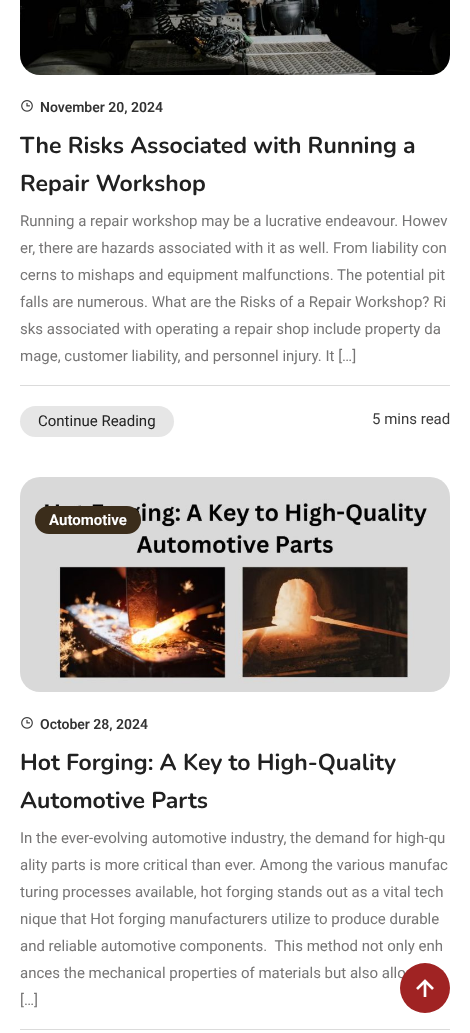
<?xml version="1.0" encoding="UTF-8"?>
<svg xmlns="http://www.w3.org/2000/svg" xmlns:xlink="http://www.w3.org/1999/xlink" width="470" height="1033">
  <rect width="100%" height="100%" fill="#ffffff" />
  <image x="20" y="0" width="430" height="75" xlink:href="image1.png" />
  <image x="21" y="100" width="12" height="12" xlink:href="image2.png" />
  <rect x="20" y="385" width="430" height="1" fill="#dbdbdb" />
  <rect x="20" y="406" width="154" height="31" rx="15.5" fill="#e6e6e6" />
  <image x="20" y="477" width="430" height="215" xlink:href="image3.png" />
  <rect x="35" y="506" width="106" height="28" rx="14" fill="#3b2d1b" />
  <image x="21" y="717" width="12" height="12" xlink:href="image2.png" />
  <rect x="20" y="1029" width="430" height="1" fill="#dbdbdb" />
  <text x="40" y="112" style="font-family: Roboto; font-size: 14px; font-weight: 600; fill: #333333">November 20, 2024</text>
  <text x="20" y="153" style="font-family: Nunito; font-size: 23px; font-weight: bold; fill: #212121">The Risks Associated with Running a</text>
  <text x="20" y="191" style="font-family: Nunito; font-size: 23px; font-weight: bold; fill: #212121">Repair Workshop</text>
  <text x="20" y="226" style="font-family: Roboto; font-size: 15px; fill: #767575">Running a repair workshop may be a lucrative endeavour. Howev</text>
  <text x="20" y="253" style="font-family: Roboto; font-size: 15px; fill: #767575">er, there are hazards associated with it as well. From liability con</text>
  <text x="20" y="280" style="font-family: Roboto; font-size: 15px; fill: #767575">cerns to mishaps and equipment malfunctions. The potential pit</text>
  <text x="20" y="307" style="font-family: Roboto; font-size: 15px; fill: #767575">falls are numerous. What are the Risks of a Repair Workshop? Ri</text>
  <text x="20" y="334" style="font-family: Roboto; font-size: 15px; fill: #767575">sks associated with operating a repair shop include property da</text>
  <text x="20" y="361" style="font-family: Roboto; font-size: 15px; fill: #767575">mage, customer liability, and personnel injury. It […]</text>
  <text x="38" y="426" style="font-family: Roboto; font-size: 15px; fill: #212121">Continue Reading</text>
  <text x="372" y="424" style="font-family: Roboto; font-size: 15px; fill: #3b3b3b">5 mins read</text>
  <text x="49" y="525" style="font-family: Roboto; font-size: 15px; font-weight: bold; fill: #ffffff">Automotive</text>
  <text x="40" y="729" style="font-family: Roboto; font-size: 14px; font-weight: 600; fill: #333333">October 28, 2024</text>
  <text x="20" y="770" style="font-family: Nunito; font-size: 23px; font-weight: bold; fill: #212121">Hot Forging: A Key to High-Quality</text>
  <text x="20" y="808" style="font-family: Nunito; font-size: 23px; font-weight: bold; fill: #212121">Automotive Parts</text>
  <text x="20" y="843" style="font-family: Roboto; font-size: 15px; fill: #767575">In the ever-evolving automotive industry, the demand for high-qu</text>
  <text x="20" y="870" style="font-family: Roboto; font-size: 15px; fill: #767575">ality parts is more critical than ever. Among the various manufac</text>
  <text x="20" y="897" style="font-family: Roboto; font-size: 15px; fill: #767575">turing processes available, hot forging stands out as a vital tech</text>
  <text x="20" y="924" style="font-family: Roboto; font-size: 15px; fill: #767575">nique that Hot forging manufacturers utilize to produce durable</text>
  <text x="20" y="951" style="font-family: Roboto; font-size: 15px; fill: #767575" xml:space="preserve">and reliable automotive components.  This method not only enh</text>
  <text x="20" y="978" style="font-family: Roboto; font-size: 15px; fill: #767575">ances the mechanical properties of materials but also allo</text>
  <text x="20" y="1005" style="font-family: Roboto; font-size: 15px; fill: #767575">[…]</text>
  <circle cx="425" cy="988" r="25" fill="#a02323" />
  <image x="416" y="979" width="18" height="18" xlink:href="image4.png" />
</svg>
